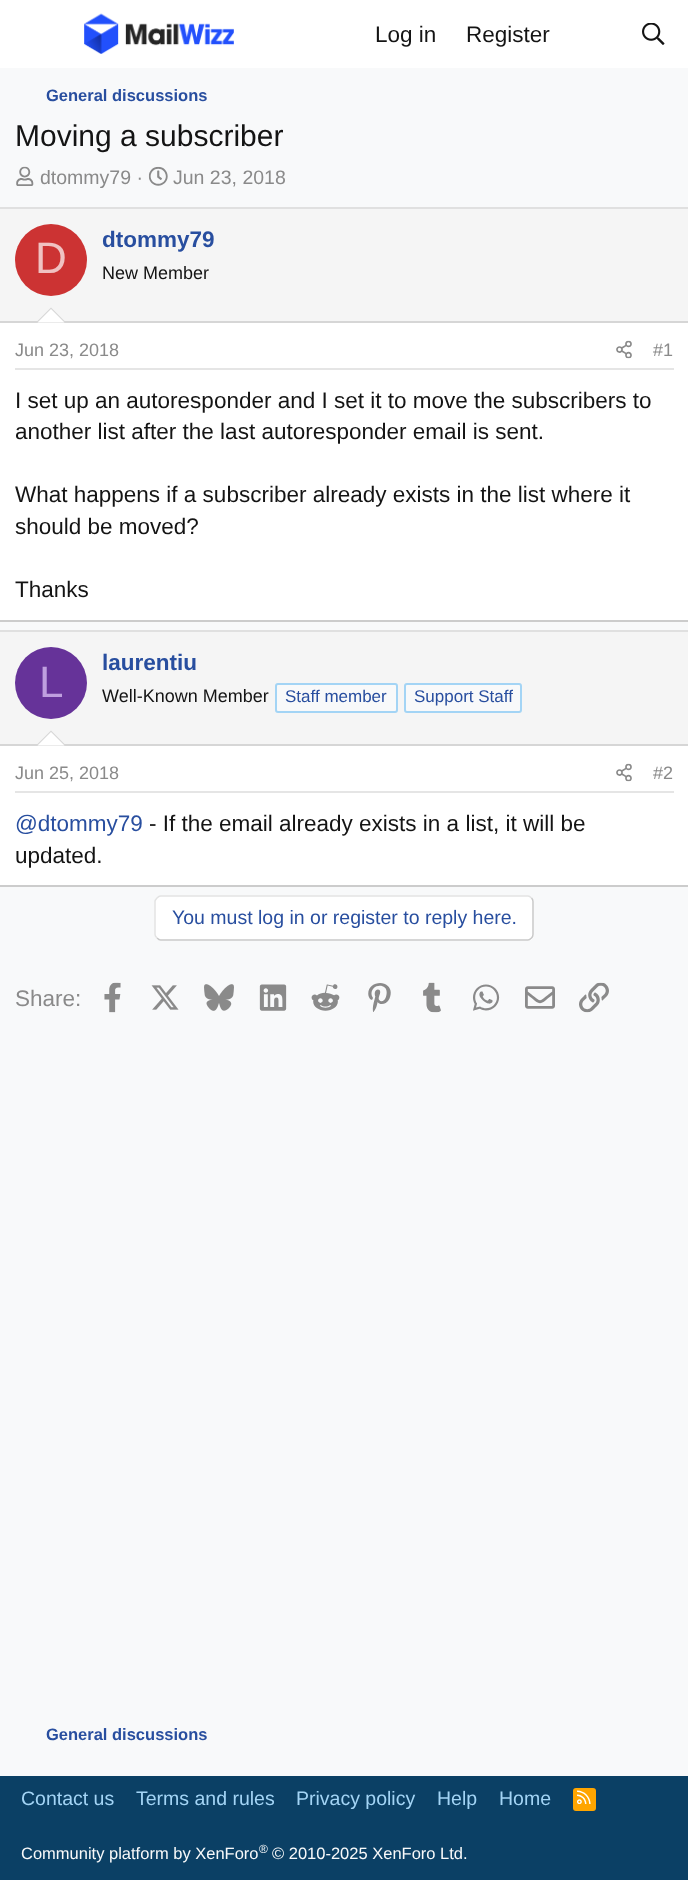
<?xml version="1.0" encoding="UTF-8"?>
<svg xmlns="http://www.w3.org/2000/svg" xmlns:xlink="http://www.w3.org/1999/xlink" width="688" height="1880">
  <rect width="100%" height="100%" fill="#f8f9fa" />
  <rect width="688" height="68" fill="#ffffff" />
  <image x="84" y="13" width="150" height="41" xlink:href="image1.png" />
  <image x="642" y="23" width="23" height="22" xlink:href="image2.png" />
  <image x="16" y="166" width="18" height="20" xlink:href="image3.png" />
  <image x="148" y="166" width="20" height="20" xlink:href="image4.png" />
  <rect y="323" width="688" height="297" fill="#ffffff" />
  <rect y="207" width="688" height="2" fill="#e0e0e0" />
  <rect y="620" width="688" height="2" fill="#cccccc" />
  <rect y="209" width="688" height="112" fill="#f5f5f5" />
  <rect y="321" width="688" height="2" fill="#d6d6d6" />
  <circle cx="51" cy="260" r="36" fill="#cc3333" />
  <path d="M 66 322.5 h -30 l 15 -15 z" fill="#d6d6d6" />
  <path d="M 64.5 322.5 h -27 l 13.5 -13.5 z" fill="#ffffff" />
  <rect x="15" y="368" width="659" height="2" fill="#e5e5e5" />
  <image x="616" y="340" width="16" height="19" xlink:href="image5.png" />
  <rect y="746" width="688" height="139" fill="#ffffff" />
  <rect y="630" width="688" height="2" fill="#e0e0e0" />
  <rect y="885" width="688" height="2" fill="#cccccc" />
  <rect y="632" width="688" height="112" fill="#f5f5f5" />
  <rect y="744" width="688" height="2" fill="#d6d6d6" />
  <circle cx="51" cy="683" r="36" fill="#663399" />
  <rect x="276" y="684" width="121" height="28" rx="2" fill="#f8f9fa" stroke="#a3d4f5" stroke-width="2" />
  <rect x="405" y="684" width="116" height="28" rx="2" fill="#f8f9fa" stroke="#a3d4f5" stroke-width="2" />
  <path d="M 66 745.5 h -30 l 15 -15 z" fill="#d6d6d6" />
  <path d="M 64.5 745.5 h -27 l 13.5 -13.5 z" fill="#ffffff" />
  <rect x="15" y="791" width="659" height="2" fill="#e5e5e5" />
  <image x="616" y="763" width="16" height="19" xlink:href="image5.png" />
  <rect x="155" y="896" width="379" height="45" rx="6" fill="#ffffff" />
  <path d="M 531.5 898 c 1 1 1.5 2 1.5 3.5 v 33 c 0 1.5 -0.5 2.5 -1.5 3.5 c -1 1 -2 2 -3.5 2 h -367.5 c -1.5 0 -2.5 -1 -3.5 -2" fill="none" stroke="#c9c9c9" stroke-width="1.5" />
  <path d="M 157 938 c -1 -1 -2 -2 -2 -3.5 v -33 c 0 -1.5 1 -2.5 2 -3.5 c 1 -1 2 -2 3.5 -2 h 367.5 c 1.5 0 2.5 1 3.5 2" fill="none" stroke="#e3e3e3" stroke-width="1.5" />
  <image x="104" y="982" width="17" height="31" xlink:href="image6.png" />
  <image x="151" y="985" width="28" height="25" xlink:href="image7.png" />
  <image x="204" y="984" width="30" height="27" xlink:href="image8.png" />
  <image x="259" y="984" width="28" height="27" xlink:href="image9.png" />
  <image x="311" y="984" width="29" height="27" xlink:href="image10.png" />
  <image x="368" y="983" width="23" height="29" xlink:href="image11.png" />
  <image x="423" y="982" width="18" height="31" xlink:href="image12.png" />
  <image x="473" y="984" width="27" height="27" xlink:href="image13.png" />
  <image x="525" y="986" width="30" height="23" xlink:href="image14.png" />
  <image x="579" y="982" width="30" height="31" xlink:href="image15.png" />
  <rect y="1776" width="688" height="104" fill="#0b4065" />
  <rect x="573" y="1788" width="23" height="23" rx="3" fill="#ffa500" />
  <image x="577" y="1790" width="14" height="14" xlink:href="image16.png" />
  <text x="375" y="42" style="font-family: Liberation Sans; font-size: 22.5px; fill: #141414">Log in</text>
  <text x="466" y="42" style="font-family: Liberation Sans; font-size: 22.5px; fill: #141414">Register</text>
  <text x="46" y="101" style="font-family: Liberation Sans; font-size: 16.5px; font-weight: bold; fill: #284e9f">General discussions</text>
  <text x="15" y="146" style="font-family: Liberation Sans; font-size: 30px; fill: #141414">Moving a subscriber</text>
  <text x="40" y="184" style="font-family: Liberation Sans; font-size: 19.5px; fill: #8a8a8a">dtommy79 ·</text>
  <text x="173" y="184" style="font-family: Liberation Sans; font-size: 19.5px; fill: #8a8a8a">Jun 23, 2018</text>
  <text x="35" y="273" style="font-family: Liberation Sans; font-size: 44px; fill: #f0c2c2">D</text>
  <text x="102" y="247" style="font-family: Liberation Sans; font-size: 22.5px; font-weight: bold; fill: #284e9f">dtommy79</text>
  <text x="102" y="279" style="font-family: Liberation Sans; font-size: 18px; fill: #141414">New Member</text>
  <text x="15" y="356" style="font-family: Liberation Sans; font-size: 18px; fill: #8a8a8a">Jun 23, 2018</text>
  <text x="653" y="356" style="font-family: Liberation Sans; font-size: 18px; fill: #8a8a8a">#1</text>
  <text x="15" y="408" style="font-family: Liberation Sans; font-size: 22.5px; fill: #141414">I set up an autoresponder and I set it to move the subscribers to</text>
  <text x="15" y="439" style="font-family: Liberation Sans; font-size: 22.5px; fill: #141414">another list after the last autoresponder email is sent.</text>
  <text x="15" y="502" style="font-family: Liberation Sans; font-size: 22.5px; fill: #141414">What happens if a subscriber already exists in the list where it</text>
  <text x="15" y="534" style="font-family: Liberation Sans; font-size: 22.5px; fill: #141414">should be moved?</text>
  <text x="15" y="597" style="font-family: Liberation Sans; font-size: 22.5px; fill: #141414">Thanks</text>
  <text x="39" y="697" style="font-family: Liberation Sans; font-size: 44px; fill: #bf9fdf">L</text>
  <text x="102" y="670" style="font-family: Liberation Sans; font-size: 22.5px; font-weight: bold; fill: #284e9f">laurentiu</text>
  <text x="102" y="702" style="font-family: Liberation Sans; font-size: 18px; fill: #141414">Well-Known Member</text>
  <text x="285" y="702" style="font-family: Liberation Sans; font-size: 17px; fill: #284e9f">Staff member</text>
  <text x="414" y="702" style="font-family: Liberation Sans; font-size: 17px; fill: #284e9f">Support Staff</text>
  <text x="15" y="779" style="font-family: Liberation Sans; font-size: 18px; fill: #8a8a8a">Jun 25, 2018</text>
  <text x="653" y="779" style="font-family: Liberation Sans; font-size: 18px; fill: #8a8a8a">#2</text>
  <text x="15" y="831" style="font-family: Liberation Sans; font-size: 22.5px; fill: #284e9f">@dtommy79</text>
  <text x="149" y="831" style="font-family: Liberation Sans; font-size: 22.5px; fill: #141414">- If the email already exists in a list, it will be</text>
  <text x="15" y="863" style="font-family: Liberation Sans; font-size: 22.5px; fill: #141414">updated.</text>
  <text x="172" y="924" style="font-family: Liberation Sans; font-size: 19.5px; fill: #284e9f">You must log in or register to reply here.</text>
  <text x="15" y="1006" style="font-family: Liberation Sans; font-size: 22.5px; fill: #8a8a8a">Share:</text>
  <text x="46" y="1740" style="font-family: Liberation Sans; font-size: 16.5px; font-weight: bold; fill: #284e9f">General discussions</text>
  <text x="21" y="1805" style="font-family: Liberation Sans; font-size: 19.5px; fill: #a3d4f5">Contact us</text>
  <text x="136" y="1805" style="font-family: Liberation Sans; font-size: 19.5px; fill: #a3d4f5">Terms and rules</text>
  <text x="296" y="1805" style="font-family: Liberation Sans; font-size: 19.5px; fill: #a3d4f5">Privacy policy</text>
  <text x="437" y="1805" style="font-family: Liberation Sans; font-size: 19.5px; fill: #a3d4f5">Help</text>
  <text x="499" y="1805" style="font-family: Liberation Sans; font-size: 19.5px; fill: #a3d4f5">Home</text>
  <text x="21" y="1859" style="font-family: Liberation Sans; font-size: 16.5px; fill: #f8f9fa">Community platform by XenForo</text>
  <text x="259" y="1853" style="font-family: Liberation Sans; font-size: 12px; fill: #f8f9fa">®</text>
  <text x="272" y="1859" style="font-family: Liberation Sans; font-size: 16.5px; fill: #f8f9fa">© 2010-2025 XenForo Ltd.</text>
</svg>
